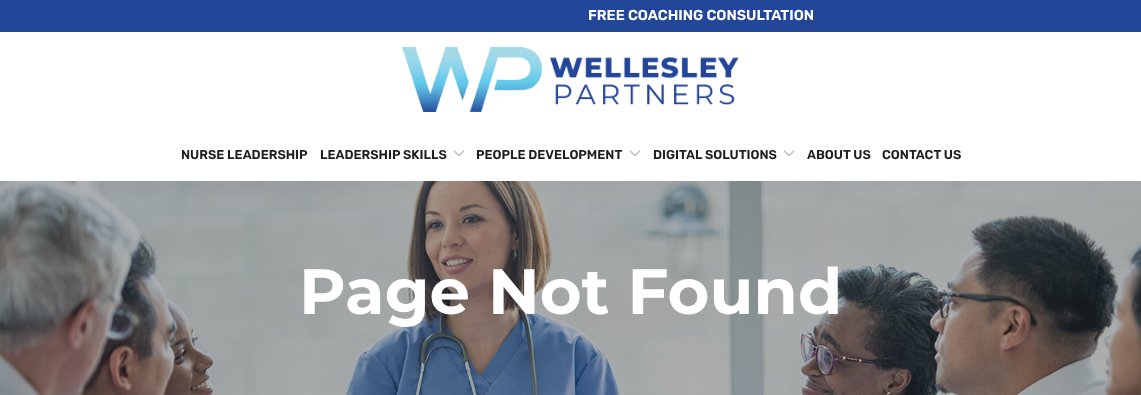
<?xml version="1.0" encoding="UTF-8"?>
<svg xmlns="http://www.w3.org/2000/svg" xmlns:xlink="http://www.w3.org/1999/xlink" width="1141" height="395">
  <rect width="100%" height="100%" fill="#ffffff" />
  <rect width="1141" height="32" fill="#224698" />
  <image x="402" y="47" width="337" height="65" xlink:href="image1.png" />
  <image x="454" y="150" width="10" height="6" xlink:href="image2.png" />
  <image x="630" y="150" width="10" height="6" xlink:href="image2.png" />
  <image x="784" y="150" width="10" height="6" xlink:href="image2.png" />
  <image x="0" y="181" width="1141" height="214" xlink:href="image3.png" />
  <text x="588" y="20" style="font-family: Rubik; font-size: 14.4px; font-weight: 600; fill: #ffffff">FREE COACHING CONSULTATION</text>
  <text x="181" y="159" style="font-family: Rubik; font-size: 12.75px; font-weight: 600; fill: #1f1f1f">NURSE LEADERSHIP</text>
  <text x="320" y="159" style="font-family: Rubik; font-size: 12.75px; font-weight: 600; fill: #1f1f1f">LEADERSHIP SKILLS</text>
  <text x="476" y="159" style="font-family: Rubik; font-size: 12.75px; font-weight: 600; fill: #1f1f1f">PEOPLE DEVELOPMENT</text>
  <text x="653" y="159" style="font-family: Rubik; font-size: 12.75px; font-weight: 600; fill: #1f1f1f">DIGITAL SOLUTIONS</text>
  <text x="807" y="159" style="font-family: Rubik; font-size: 12.75px; font-weight: 600; fill: #1f1f1f">ABOUT US</text>
  <text x="882" y="159" style="font-family: Rubik; font-size: 12.75px; font-weight: 600; fill: #1f1f1f">CONTACT US</text>
  <text x="299" y="314" style="font-family: Montserrat; font-size: 64px; font-weight: bold; fill: #ffffff">Page Not Found</text>
</svg>
